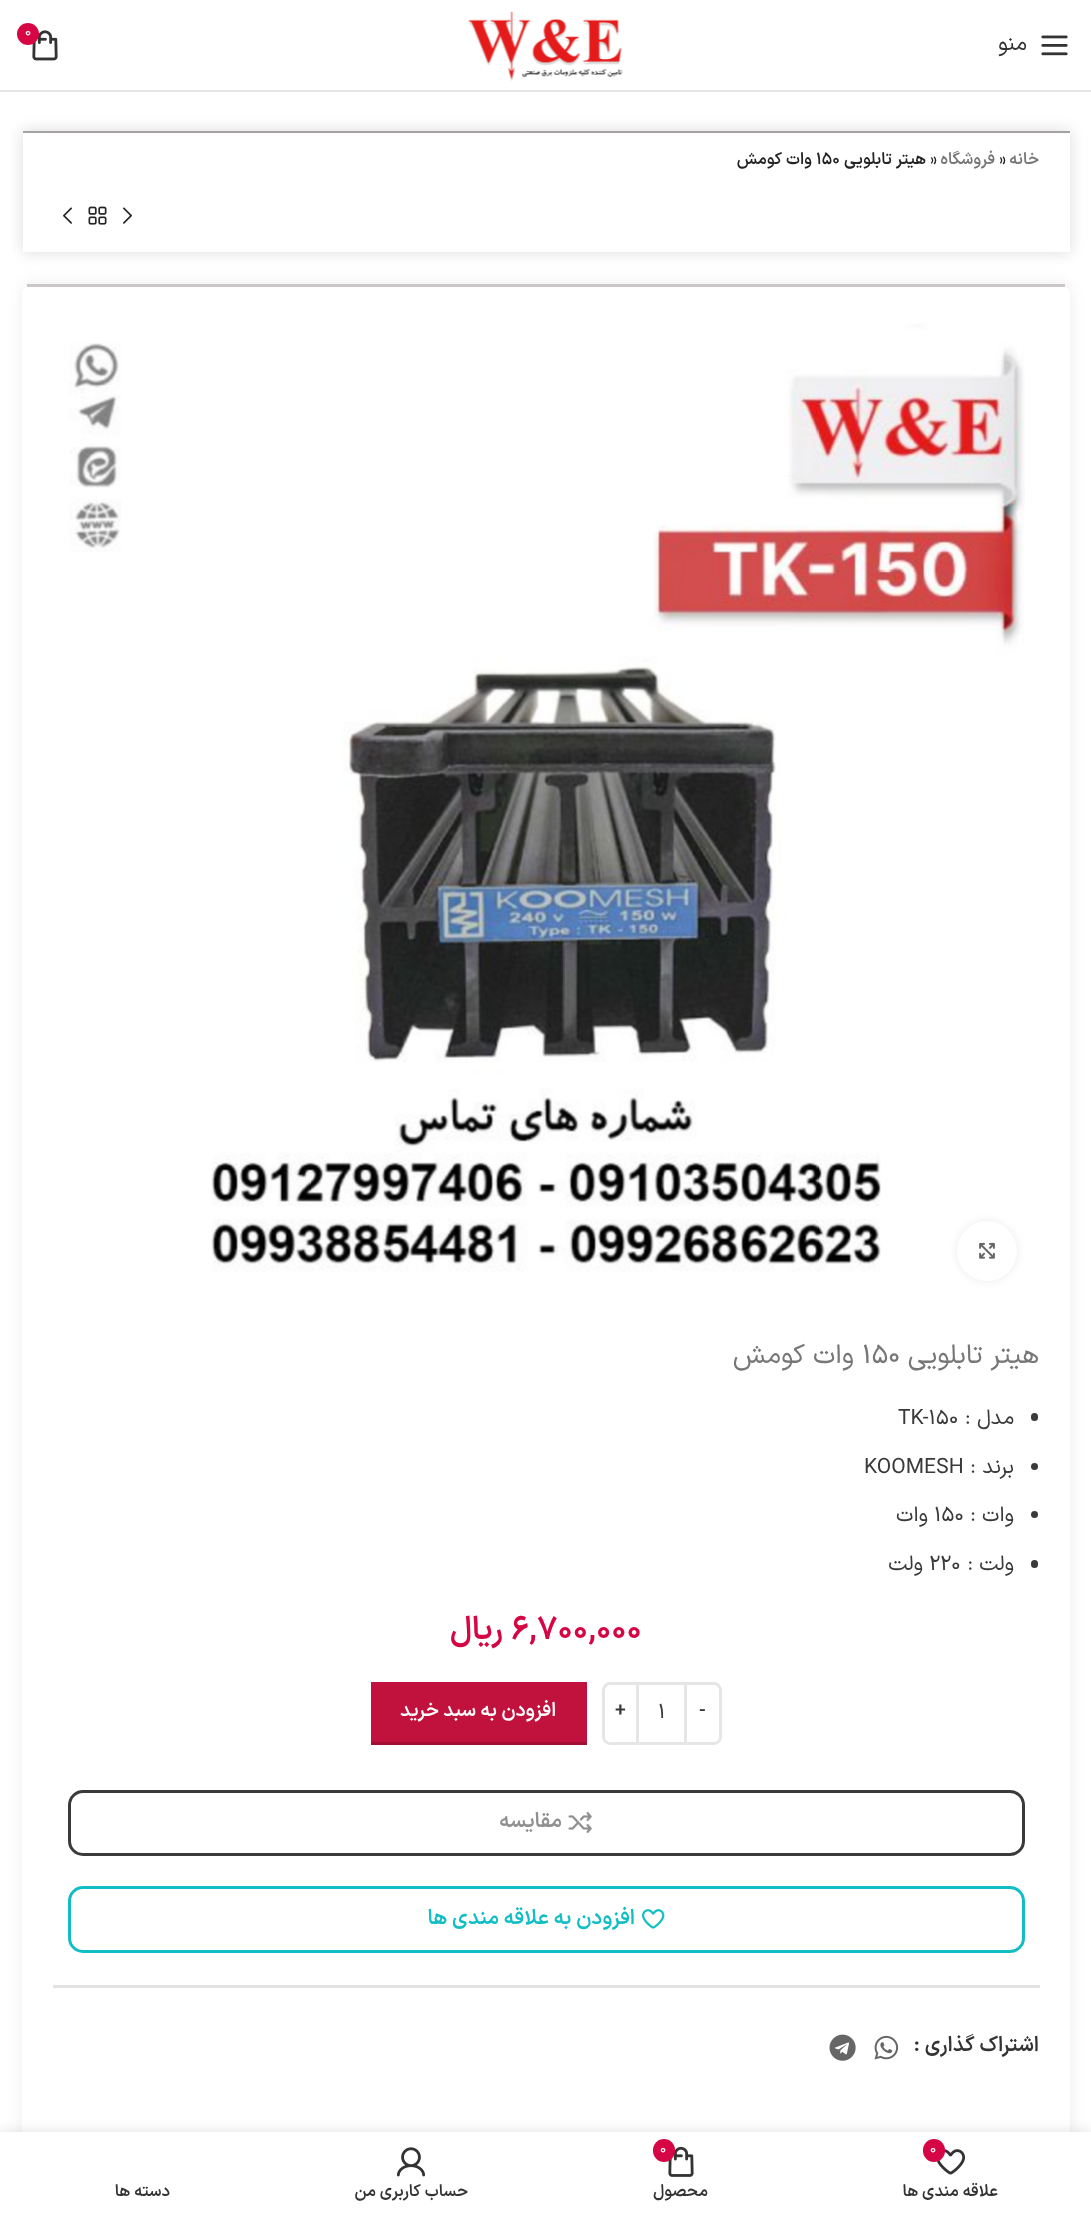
<?xml version="1.0" encoding="UTF-8"?>
<svg xmlns="http://www.w3.org/2000/svg" xmlns:xlink="http://www.w3.org/1999/xlink" width="1091" height="2214">
  <rect width="100%" height="100%" fill="#ffffff" />
  <rect y="90" width="1091" height="2" fill="#e6e6e6" />
  <image x="468" y="11" width="155" height="70" xlink:href="image1.png" />
  <image x="32" y="30" width="26" height="31" xlink:href="image2.png" />
  <circle cx="28" cy="34" r="11" fill="#d60644" />
  <image x="1041" y="35" width="27" height="21" xlink:href="image3.png" />
  <rect x="23" y="131" width="1047" height="121" fill="#bcb5b5" fill-opacity="0.5" filter="blur(7.5px)" />
  <rect x="23" y="133" width="1047" height="119" fill="#ffffff" />
  <rect x="23" y="131" width="1047" height="2" fill="#a4a1a1" />
  <image x="123" y="207" width="9" height="17" xlink:href="image4.png" />
  <image x="88" y="206" width="19" height="19" xlink:href="image5.png" />
  <image x="63" y="207" width="9" height="17" xlink:href="image6.png" />
  <rect x="23" y="284" width="1047" height="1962" rx="9" fill="#d7d7d7" fill-opacity="0.5" filter="blur(7.5px)" />
  <path d="M 32 286 h 1028 c 5 0 10 3 10 6 v 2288 c 0 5 -5 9 -10 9 h -1028 c -5 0 -10 -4 -10 -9 v -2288 c 0 -3 5 -6 10 -6 z" fill="#ffffff" />
  <rect x="27" y="284" width="1038" height="3" fill="#ccc7c7" />
  <image x="69" y="323" width="956" height="949" xlink:href="image7.png" />
  <rect x="957" y="1221" width="60" height="60" rx="30" fill="#000000" fill-opacity="0.08" filter="blur(4px)" />
  <circle cx="987" cy="1251" r="30" fill="#ffffff" />
  <image x="979" y="1242" width="16" height="17" xlink:href="image8.png" />
  <rect x="1031" y="1413" width="7" height="8" rx="3.5" fill="#3a3a3a" />
  <circle cx="1034.5" cy="1466.5" r="3.5" fill="#3a3a3a" />
  <circle cx="1034.5" cy="1514.5" r="3.5" fill="#3a3a3a" />
  <rect x="1031" y="1560" width="7" height="8" rx="3.5" fill="#3a3a3a" />
  <path d="M 685.5 1683.5 h 28.5 c 3.5 0 6.5 3 6.5 6.5 v 47 c 0 3.5 -3 6.5 -6.5 6.5 h -28.5 z" fill="none" stroke="#e6e6e6" stroke-width="3" />
  <rect x="639" y="1682" width="45" height="3" fill="#e6e6e6" />
  <rect x="639" y="1742" width="45" height="3" fill="#e6e6e6" />
  <path d="M 610 1683.5 h 27.5 v 60 h -27.5 c -3.5 0 -6.5 -3 -6.5 -6.5 v -47 c 0 -3.5 3 -6.5 6.5 -6.5 z" fill="none" stroke="#e6e6e6" stroke-width="3" />
  <rect x="371" y="1682" width="216" height="60" fill="#c1113d" />
  <rect x="371" y="1742" width="216" height="3" fill="#a40e34" />
  <rect x="69.5" y="1791.5" width="954" height="63" rx="13.5" fill="none" stroke="#3a3a3a" stroke-width="3" />
  <image x="568" y="1812" width="24" height="21" xlink:href="image9.png" />
  <rect x="69.5" y="1887.5" width="954" height="64" rx="13.5" fill="none" stroke="#11bec4" stroke-width="3" />
  <image x="642" y="1909" width="23" height="20" xlink:href="image10.png" />
  <rect x="53" y="1985" width="987" height="3" fill="#e2e2e2" />
  <image x="874" y="2035" width="25" height="25" xlink:href="image11.png" />
  <image x="829" y="2034" width="27" height="27" xlink:href="image12.png" />
  <rect y="2132" width="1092" height="82" fill="#000000" fill-opacity="0.12" filter="blur(7px)" />
  <rect y="2132" width="1091" height="82" fill="#ffffff" />
  <image x="936" y="2149" width="30" height="26" xlink:href="image13.png" />
  <rect x="923" y="2139" width="22" height="23" rx="11" fill="#d60644" />
  <image x="668" y="2146" width="26" height="31" xlink:href="image14.png" />
  <rect x="653" y="2139" width="22" height="23" rx="11" fill="#d60644" />
  <image x="397" y="2147" width="28" height="30" xlink:href="image15.png" />
  <text x="25" y="36" style="font-family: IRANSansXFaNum; font-size: 14px; fill: #ffffff">0</text>
  <text x="1027" y="50" style="font-family: IRANSansXFaNum; font-size: 22px; direction: rtl; fill: #333333">منو</text>
  <text x="1039" y="164" style="font-family: IRANSansXFaNum; font-size: 16.5px; font-weight: 600; direction: rtl; fill: #777777">خانه</text>
  <text x="999" y="164" style="font-family: IRANSansXFaNum; font-size: 16.5px; font-weight: 600; fill: #242424">»</text>
  <text x="995" y="164" style="font-family: IRANSansXFaNum; font-size: 16.5px; font-weight: 600; direction: rtl; fill: #777777">فروشگاه</text>
  <text x="930" y="164" style="font-family: IRANSansXFaNum; font-size: 16.5px; font-weight: 600; fill: #242424">»</text>
  <text x="926" y="164" style="font-family: IRANSansXFaNum; font-size: 16.5px; font-weight: 600; direction: rtl; fill: #242424">هیتر تابلویی</text>
  <text x="816" y="164" style="font-family: IRANSansXFaNum; font-size: 16.5px; font-weight: 600; fill: #242424">150</text>
  <text x="812" y="164" style="font-family: IRANSansXFaNum; font-size: 16.5px; font-weight: 600; direction: rtl; fill: #242424">وات کومش</text>
  <text x="1039" y="1363" style="font-family: IRANSansXFaNum; font-size: 27px; direction: rtl; fill: #777777">هیتر تابلویی</text>
  <text x="862" y="1363" style="font-family: IRANSansXFaNum; font-size: 27px; fill: #777777">150</text>
  <text x="854" y="1363" style="font-family: IRANSansXFaNum; font-size: 27px; direction: rtl; fill: #777777">وات کومش</text>
  <text x="1014" y="1424" style="font-family: IRANSansXFaNum; font-size: 21px; direction: rtl; fill: #3a3a3a">مدل :</text>
  <text x="898" y="1424" style="font-family: IRANSansXFaNum; font-size: 21px; fill: #3a3a3a">TK-150</text>
  <text x="1014" y="1473" style="font-family: IRANSansXFaNum; font-size: 21px; direction: rtl; fill: #3a3a3a">برند :</text>
  <text x="864" y="1473" style="font-family: IRANSansXFaNum; font-size: 21px; fill: #3a3a3a">KOOMESH</text>
  <text x="1014" y="1521" style="font-family: IRANSansXFaNum; font-size: 21px; direction: rtl; fill: #3a3a3a">وات :</text>
  <text x="934" y="1521" style="font-family: IRANSansXFaNum; font-size: 21px; fill: #3a3a3a">150</text>
  <text x="928" y="1521" style="font-family: IRANSansXFaNum; font-size: 21px; direction: rtl; fill: #3a3a3a">وات</text>
  <text x="1014" y="1570" style="font-family: IRANSansXFaNum; font-size: 21px; direction: rtl; fill: #3a3a3a">ولت :</text>
  <text x="929" y="1570" style="font-family: IRANSansXFaNum; font-size: 21px; fill: #3a3a3a">220</text>
  <text x="923" y="1570" style="font-family: IRANSansXFaNum; font-size: 21px; direction: rtl; fill: #3a3a3a">ولت</text>
  <text x="511" y="1639" style="font-family: IRANSansXFaNum; font-size: 32.5px; font-weight: 600; fill: #d60644">6,700,000</text>
  <text x="503" y="1639" style="font-family: IRANSansXFaNum; font-size: 32.5px; font-weight: 600; direction: rtl; fill: #d60644">ریال</text>
  <text x="699" y="1716" style="font-family: IRANSansXFaNum; font-size: 19.5px; font-weight: 600; fill: #3a3a3a">-</text>
  <text x="658" y="1718" style="font-family: IRANSansXFaNum; font-size: 21px; fill: #3a3a3a">1</text>
  <text x="615" y="1716" style="font-family: IRANSansXFaNum; font-size: 19.5px; font-weight: 600; fill: #3a3a3a">+</text>
  <text x="556" y="1716" style="font-family: IRANSansXFaNum; font-size: 19.5px; font-weight: 600; direction: rtl; fill: #ffffff">افزودن به سبد خرید</text>
  <text x="562" y="1827" style="font-family: IRANSansXFaNum; font-size: 21px; font-weight: 600; direction: rtl; fill: #909090">مقایسه</text>
  <text x="635" y="1924" style="font-family: IRANSansXFaNum; font-size: 21px; font-weight: 600; direction: rtl; fill: #11bec4">افزودن به علاقه مندی ها</text>
  <text x="1039" y="2051" style="font-family: IRANSansXFaNum; font-size: 21px; font-weight: 600; direction: rtl; fill: #333333">اشتراک گذاری :</text>
  <text x="930" y="2153" style="font-family: IRANSansXFaNum; font-size: 14px; fill: #ffffff">0</text>
  <text x="998" y="2196" style="font-family: IRANSansXFaNum; font-size: 16.5px; font-weight: 600; direction: rtl; fill: #333333">علاقه مندی ها</text>
  <text x="660" y="2153" style="font-family: IRANSansXFaNum; font-size: 14px; fill: #ffffff">0</text>
  <text x="708" y="2196" style="font-family: IRANSansXFaNum; font-size: 16.5px; font-weight: 600; direction: rtl; fill: #333333">محصول</text>
  <text x="468" y="2196" style="font-family: IRANSansXFaNum; font-size: 16.5px; font-weight: 600; direction: rtl; fill: #333333">حساب کاربری من</text>
  <text x="170" y="2196" style="font-family: IRANSansXFaNum; font-size: 16.5px; font-weight: 600; direction: rtl; fill: #333333">دسته ها</text>
</svg>
